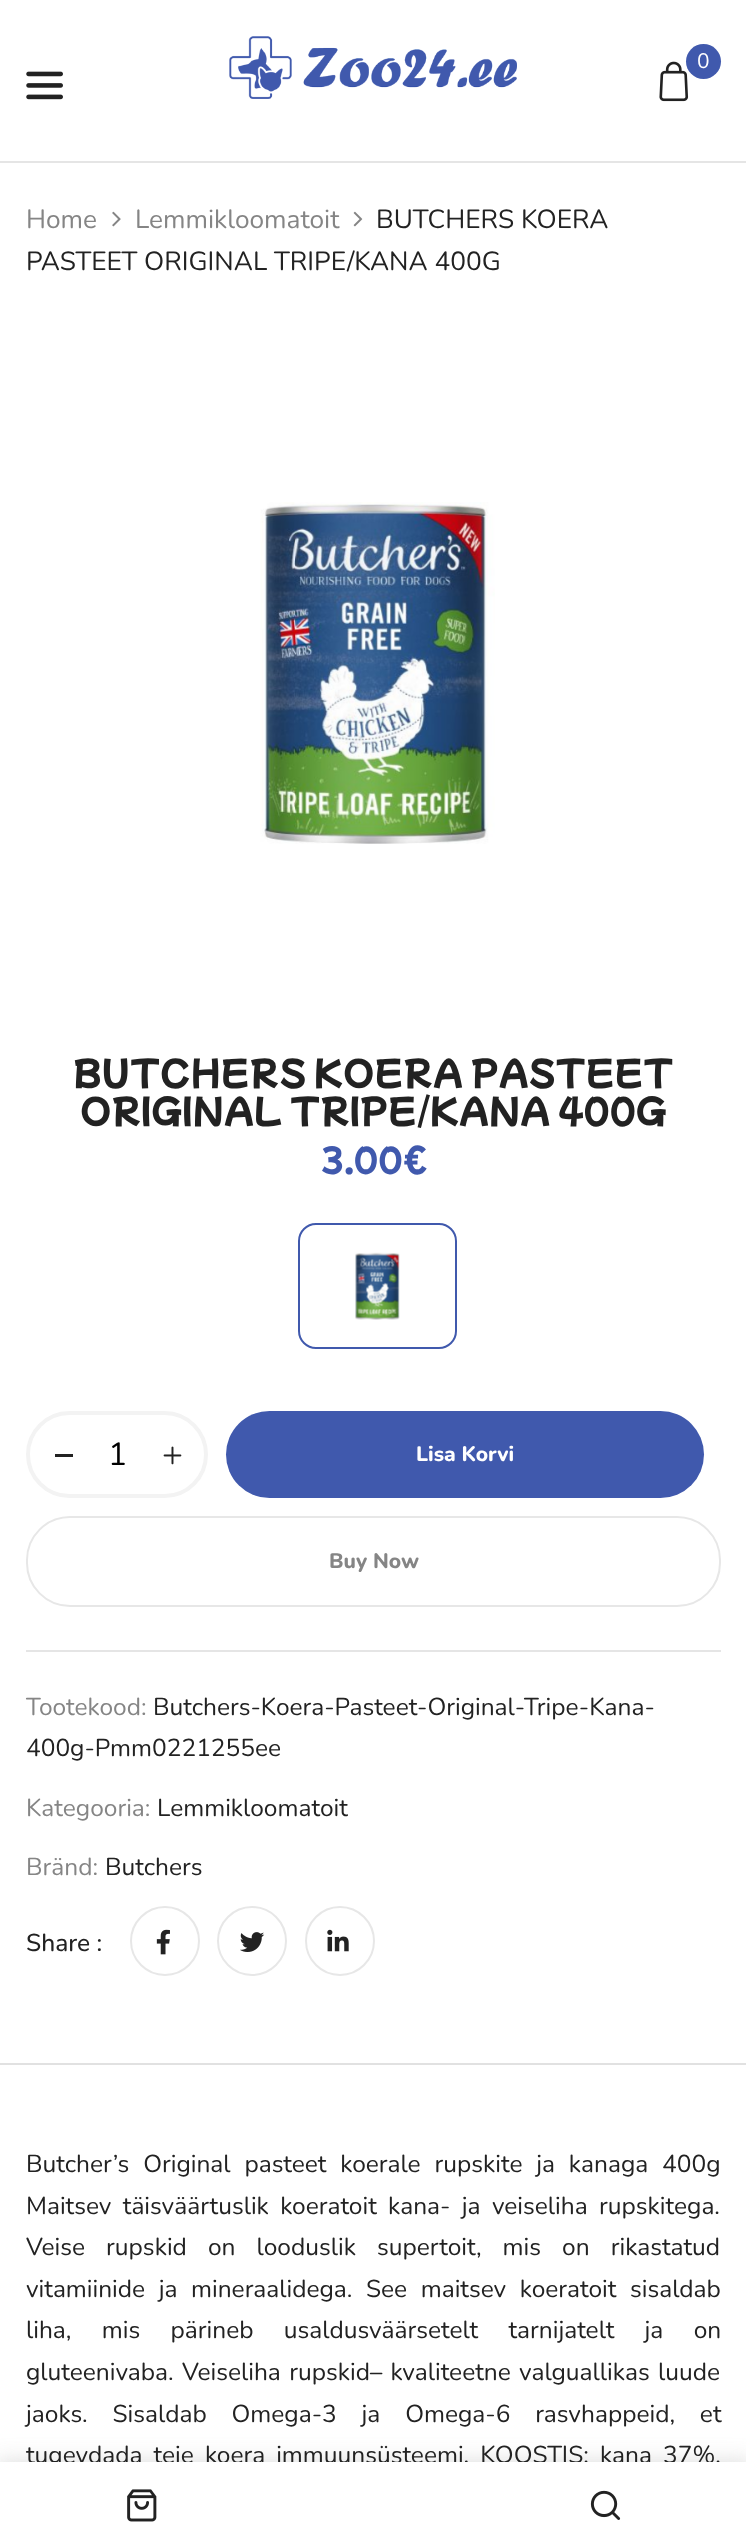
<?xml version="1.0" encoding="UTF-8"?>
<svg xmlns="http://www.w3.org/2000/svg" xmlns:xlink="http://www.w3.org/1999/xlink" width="746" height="2548">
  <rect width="100%" height="100%" fill="#ffffff" />
  <rect y="161" width="746" height="2" fill="#e5e5e5" />
  <image x="229" y="36" width="288" height="63" xlink:href="image1.png" />
  <image x="659" y="61" width="30" height="41" xlink:href="image2.png" />
  <circle cx="703.5" cy="61.5" r="17.5" fill="#4059ad" />
  <image x="26" y="71" width="37" height="29" xlink:href="image3.png" />
  <rect x="-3" y="2461" width="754" height="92" fill="#909090" fill-opacity="0.3" filter="blur(10.5px)" />
  <image x="112" y="211" width="9" height="16" xlink:href="image6.png" />
  <image x="353" y="211" width="10" height="16" xlink:href="image7.png" />
  <image x="260" y="502" width="235" height="342" xlink:href="image8.png" />
  <rect x="299" y="1224" width="157" height="124" rx="17" fill="none" stroke="#4059ad" stroke-width="2" />
  <image x="355" y="1252" width="45" height="68" xlink:href="image9.png" />
  <rect x="28" y="1413" width="178" height="83" rx="41.5" fill="none" stroke="#f3f3f3" stroke-width="4" />
  <rect x="55" y="1454" width="18" height="3" fill="#222222" />
  <image x="163" y="1446" width="19" height="19" xlink:href="image10.png" />
  <rect x="226" y="1411" width="478" height="87" rx="43.5" fill="#4059ad" />
  <rect x="27" y="1517" width="693" height="89" rx="43" fill="none" stroke="#e7e7e7" stroke-width="2" />
  <rect x="26" y="1650" width="695" height="2" fill="#e5e5e5" />
  <circle cx="165" cy="1941" r="34" fill="none" stroke="#e7e7e7" stroke-width="2" />
  <image x="156" y="1929" width="14" height="26" xlink:href="image11.png" />
  <circle cx="252" cy="1941" r="34" fill="none" stroke="#e7e7e7" stroke-width="2" />
  <image x="240" y="1932" width="25" height="20" xlink:href="image12.png" />
  <circle cx="340" cy="1941" r="34" fill="none" stroke="#e7e7e7" stroke-width="2" />
  <image x="327" y="1929" width="22" height="23" xlink:href="image13.png" />
  <rect y="2063" width="746" height="2" fill="#e1e1e1" />
  <text x="697" y="68" style="font-family: Nunito; font-size: 21px; fill: #ffffff">0</text>
  <text x="26" y="228" style="font-family: Nunito; font-size: 26.25px; fill: #858585">Home</text>
  <text x="135" y="228" style="font-family: Nunito; font-size: 26.25px; fill: #858585">Lemmikloomatoit</text>
  <text x="376" y="228" style="font-family: Nunito; font-size: 26.25px; fill: #222222">BUTCHERS KOERA</text>
  <text x="26" y="270" style="font-family: Nunito; font-size: 26.25px; fill: #222222">PASTEET ORIGINAL TRIPE/KANA 400G</text>
  <text x="73" y="1086" style="font-family: Mochiy Pop P One; font-size: 34.25px; fill: #222222">BUTCHERS KOERA PASTEET</text>
  <text x="80" y="1124" style="font-family: Mochiy Pop P One; font-size: 34.25px; fill: #222222">ORIGINAL TRIPE/KANA 400G</text>
  <text x="320" y="1172" style="font-family: Mochiy Pop P One; font-size: 32px; fill: #4059ad">3.00€</text>
  <text x="108" y="1465" style="font-family: Nunito; font-size: 32px; fill: #000000">1</text>
  <text x="416" y="1461" style="font-family: Nunito; font-size: 21px; font-weight: 800; fill: #ffffff">Lisa Korvi</text>
  <text x="329" y="1568" style="font-family: Nunito; font-size: 21px; font-weight: 800; fill: #858585">Buy Now</text>
  <text x="26" y="1715" style="font-family: Nunito; font-size: 24.5px; fill: #858585">Tootekood:</text>
  <text x="153" y="1715" style="font-family: Nunito; font-size: 24.5px; fill: #222222">Butchers-Koera-Pasteet-Original-Tripe-Kana-</text>
  <text x="26" y="1756" style="font-family: Nunito; font-size: 24.5px; fill: #222222">400g-Pmm0221255ee</text>
  <text x="26" y="1816" style="font-family: Nunito; font-size: 24.5px; fill: #858585">Kategooria:</text>
  <text x="157" y="1816" style="font-family: Nunito; font-size: 24.5px; fill: #222222">Lemmikloomatoit</text>
  <text x="26" y="1875" style="font-family: Nunito; font-size: 24.5px; fill: #858585">Bränd:</text>
  <text x="105" y="1875" style="font-family: Nunito; font-size: 24.5px; fill: #222222">Butchers</text>
  <text x="26" y="1951" style="font-family: Nunito; font-size: 24.5px; font-weight: 500; fill: #222222">Share :</text>
  <text x="26" y="2172" word-spacing="7.5" style="font-family: Nunito; font-size: 24.5px; fill: #222222">Butcher’s Original pasteet koerale rupskite ja kanaga 400g</text>
  <text x="26" y="2214" word-spacing="5" style="font-family: Nunito; font-size: 24.5px; fill: #222222">Maitsev täisväärtuslik koeratoit kana- ja veiseliha rupskitega.</text>
  <text x="26" y="2255" word-spacing="14.75" style="font-family: Nunito; font-size: 24.5px; fill: #222222">Veise rupskid on looduslik supertoit, mis on rikastatud</text>
  <text x="26" y="2297" word-spacing="7.25" style="font-family: Nunito; font-size: 24.5px; fill: #222222">vitamiinide ja mineraalidega. See maitsev koeratoit sisaldab</text>
  <text x="26" y="2338" word-spacing="24" style="font-family: Nunito; font-size: 24.5px; fill: #222222">liha, mis pärineb usaldusväärsetelt tarnijatelt ja on</text>
  <text x="26" y="2380" word-spacing="2" style="font-family: Nunito; font-size: 24.5px; fill: #222222">gluteenivaba. Veiseliha rupskid– kvaliteetne valguallikas luude</text>
  <text x="26" y="2422" word-spacing="18.5" style="font-family: Nunito; font-size: 24.5px; fill: #222222">jaoks. Sisaldab Omega-3 ja Omega-6 rasvhappeid, et</text>
  <text x="26" y="2463" word-spacing="4.75" style="font-family: Nunito; font-size: 24.5px; fill: #222222">tugevdada teie koera immuunsüsteemi. KOOSTIS: kana 37%,</text>
  <rect y="2462" width="746" height="86" fill="#ffffff" />
  <image x="590" y="2490" width="31" height="30" xlink:href="image5.png" />
  <image x="127" y="2489" width="30" height="33" xlink:href="image4.png" />
</svg>
